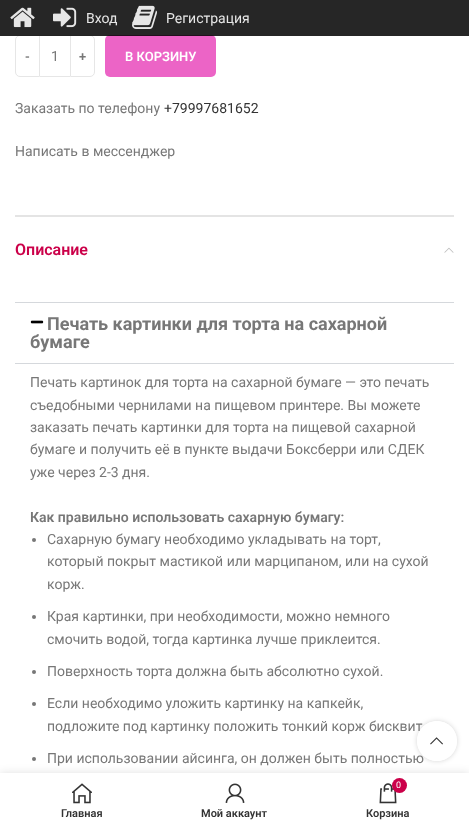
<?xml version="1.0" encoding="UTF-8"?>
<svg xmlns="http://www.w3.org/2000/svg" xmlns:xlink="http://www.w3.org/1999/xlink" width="469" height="828">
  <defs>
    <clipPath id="clip1"><path d="M 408 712 h 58 v 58 h -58 z m 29 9 c 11 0 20 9 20 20 c 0 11 -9 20 -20 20 c -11 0 -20 -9 -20 -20 c 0 -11 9 -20 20 -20 z" clip-rule="evenodd" /></clipPath>
  </defs>
  <rect width="100%" height="100%" fill="#ffffff" />
  <path d="M 20 35.5 h 19.5 v 41 h -19.5 c -2.5 0 -4.5 -2 -4.5 -4.5 v -32 c 0 -2.5 2 -4.5 4.5 -4.5 z" fill="none" stroke="#e6e6e6" />
  <rect x="40" y="35" width="30" height="1" fill="#e6e6e6" />
  <path d="M 70.5 35.5 h 19.5 c 2.5 0 4.5 2 4.5 4.5 v 32 c 0 2.5 -2 4.5 -4.5 4.5 h -19.5 z" fill="none" stroke="#e6e6e6" />
  <rect x="105" y="35" width="111" height="42" rx="5" fill="#ec64c6" />
  <rect width="469" height="36" fill="#000000" fill-opacity="0.85" />
  <image x="10" y="7" width="25" height="21" xlink:href="image1.png" />
  <image x="53" y="7" width="24" height="21" xlink:href="image2.png" />
  <image x="132" y="5" width="25" height="24" xlink:href="image3.png" />
  <rect x="40" y="76" width="30" height="1" fill="#e6e6e6" />
  <rect x="15" y="215" width="439" height="2" fill="#e4e4e4" />
  <image x="444" y="247" width="10" height="6" xlink:href="image4.png" />
  <rect x="15" y="302" width="439" height="1" fill="#d5d8dc" />
  <image x="30" y="320" width="14" height="4" xlink:href="image5.png" />
  <rect x="15" y="363" width="439" height="1" fill="#d5d8dc" />
  <circle cx="34" cy="540" r="2" fill="#777777" />
  <circle cx="34" cy="617" r="2" fill="#777777" />
  <circle cx="34" cy="672" r="2" fill="#777777" />
  <circle cx="34" cy="704" r="2" fill="#777777" />
  <circle cx="34" cy="759" r="2" fill="#777777" />
  <g clip-path="url(#clip1)">
    <rect x="417" y="721" width="40" height="40" rx="20" fill="#000000" fill-opacity="0.17" filter="blur(2.5px)" />
  </g>
  <text x="86" y="23" style="font-family: Roboto; font-size: 14px; fill: #e6e6e6">Вход</text>
  <text x="166" y="23" style="font-family: Roboto; font-size: 14px; fill: #e6e6e6">Регистрация</text>
  <text x="25" y="61" style="font-family: Roboto; font-size: 13px; font-weight: 600; fill: #777777">-</text>
  <text x="51" y="61" style="font-family: Roboto; font-size: 14px; fill: #777777">1</text>
  <text x="79" y="61" style="font-family: Roboto; font-size: 13px; font-weight: 600; fill: #777777">+</text>
  <text x="125" y="61" style="font-family: Roboto; font-size: 13px; font-weight: 600; fill: #ffffff">В КОРЗИНУ</text>
  <text x="15" y="113" style="font-family: Roboto; font-size: 14px; fill: #777777">Заказать по телефону</text>
  <text x="164" y="113" style="font-family: Roboto; font-size: 14px; fill: #333333">+79997681652</text>
  <text x="15" y="156" style="font-family: Roboto; font-size: 14px; fill: #777777">Написать в мессенджер</text>
  <text x="15" y="255" style="font-family: Roboto; font-size: 16px; font-weight: 600; fill: #cb0049">Описание</text>
  <text x="47" y="330" style="font-family: Roboto; font-size: 18px; font-weight: bold; fill: #777777">Печать картинки для торта на сахарной</text>
  <text x="30" y="348" style="font-family: Roboto; font-size: 18px; font-weight: bold; fill: #777777">бумаге</text>
  <text x="30" y="387" style="font-family: Roboto; font-size: 14px; fill: #777777">Печать картинок для торта на сахарной бумаге — это печать</text>
  <text x="30" y="410" style="font-family: Roboto; font-size: 14px; fill: #777777">съедобными чернилами на пищевом принтере. Вы можете</text>
  <text x="30" y="432" style="font-family: Roboto; font-size: 14px; fill: #777777">заказать печать картинки для торта на пищевой сахарной</text>
  <text x="30" y="454" style="font-family: Roboto; font-size: 14px; fill: #777777">бумаге и получить её в пункте выдачи Боксберри или СДЕК</text>
  <text x="30" y="477" style="font-family: Roboto; font-size: 14px; fill: #777777">уже через 2-3 дня.</text>
  <text x="30" y="522" style="font-family: Roboto; font-size: 14px; font-weight: 600; fill: #777777">Как правильно использовать сахарную бумагу:</text>
  <text x="47" y="544" style="font-family: Roboto; font-size: 14px; fill: #777777">Сахарную бумагу необходимо укладывать на торт,</text>
  <text x="47" y="566" style="font-family: Roboto; font-size: 14px; fill: #777777">который покрыт мастикой или марципаном, или на сухой</text>
  <text x="47" y="589" style="font-family: Roboto; font-size: 14px; fill: #777777">корж.</text>
  <text x="47" y="621" style="font-family: Roboto; font-size: 14px; fill: #777777">Края картинки, при необходимости, можно немного</text>
  <text x="47" y="644" style="font-family: Roboto; font-size: 14px; fill: #777777">смочить водой, тогда картинка лучше приклеится.</text>
  <text x="47" y="676" style="font-family: Roboto; font-size: 14px; fill: #777777">Поверхность торта должна быть абсолютно сухой.</text>
  <text x="47" y="708" style="font-family: Roboto; font-size: 14px; fill: #777777">Если необходимо уложить картинку на капкейк,</text>
  <text x="47" y="731" style="font-family: Roboto; font-size: 14px; fill: #777777">подложите под картинку положить тонкий корж бисквит</text>
  <text x="47" y="763" style="font-family: Roboto; font-size: 14px; fill: #777777">При использовании айсинга, он должен быть полностью</text>
  <circle cx="437" cy="741" r="20" fill="#ffffff" fill-opacity="0.9" />
  <image x="430" y="737" width="13" height="8" xlink:href="image6.png" />
  <rect y="773" width="469" height="55" fill="#000000" fill-opacity="0.12" filter="blur(4.5px)" />
  <rect y="773" width="469" height="55" fill="#ffffff" />
  <image x="72" y="783" width="20" height="21" xlink:href="image7.png" />
  <text x="61" y="817" style="font-family: Roboto; font-size: 11px; font-weight: 600; fill: #333333">Главная</text>
  <image x="225" y="783" width="20" height="20" xlink:href="image8.png" />
  <text x="201" y="817" style="font-family: Roboto; font-size: 11px; font-weight: 600; fill: #333333">Мой аккаунт</text>
  <image x="379" y="783" width="18" height="21" xlink:href="image9.png" />
  <circle cx="399.5" cy="785.5" r="7.5" fill="#cb0049" />
  <text x="396" y="788" style="font-family: Roboto; font-size: 9px; fill: #ffffff">0</text>
  <text x="366" y="817" style="font-family: Roboto; font-size: 11px; font-weight: 600; fill: #333333">Корзина</text>
</svg>
